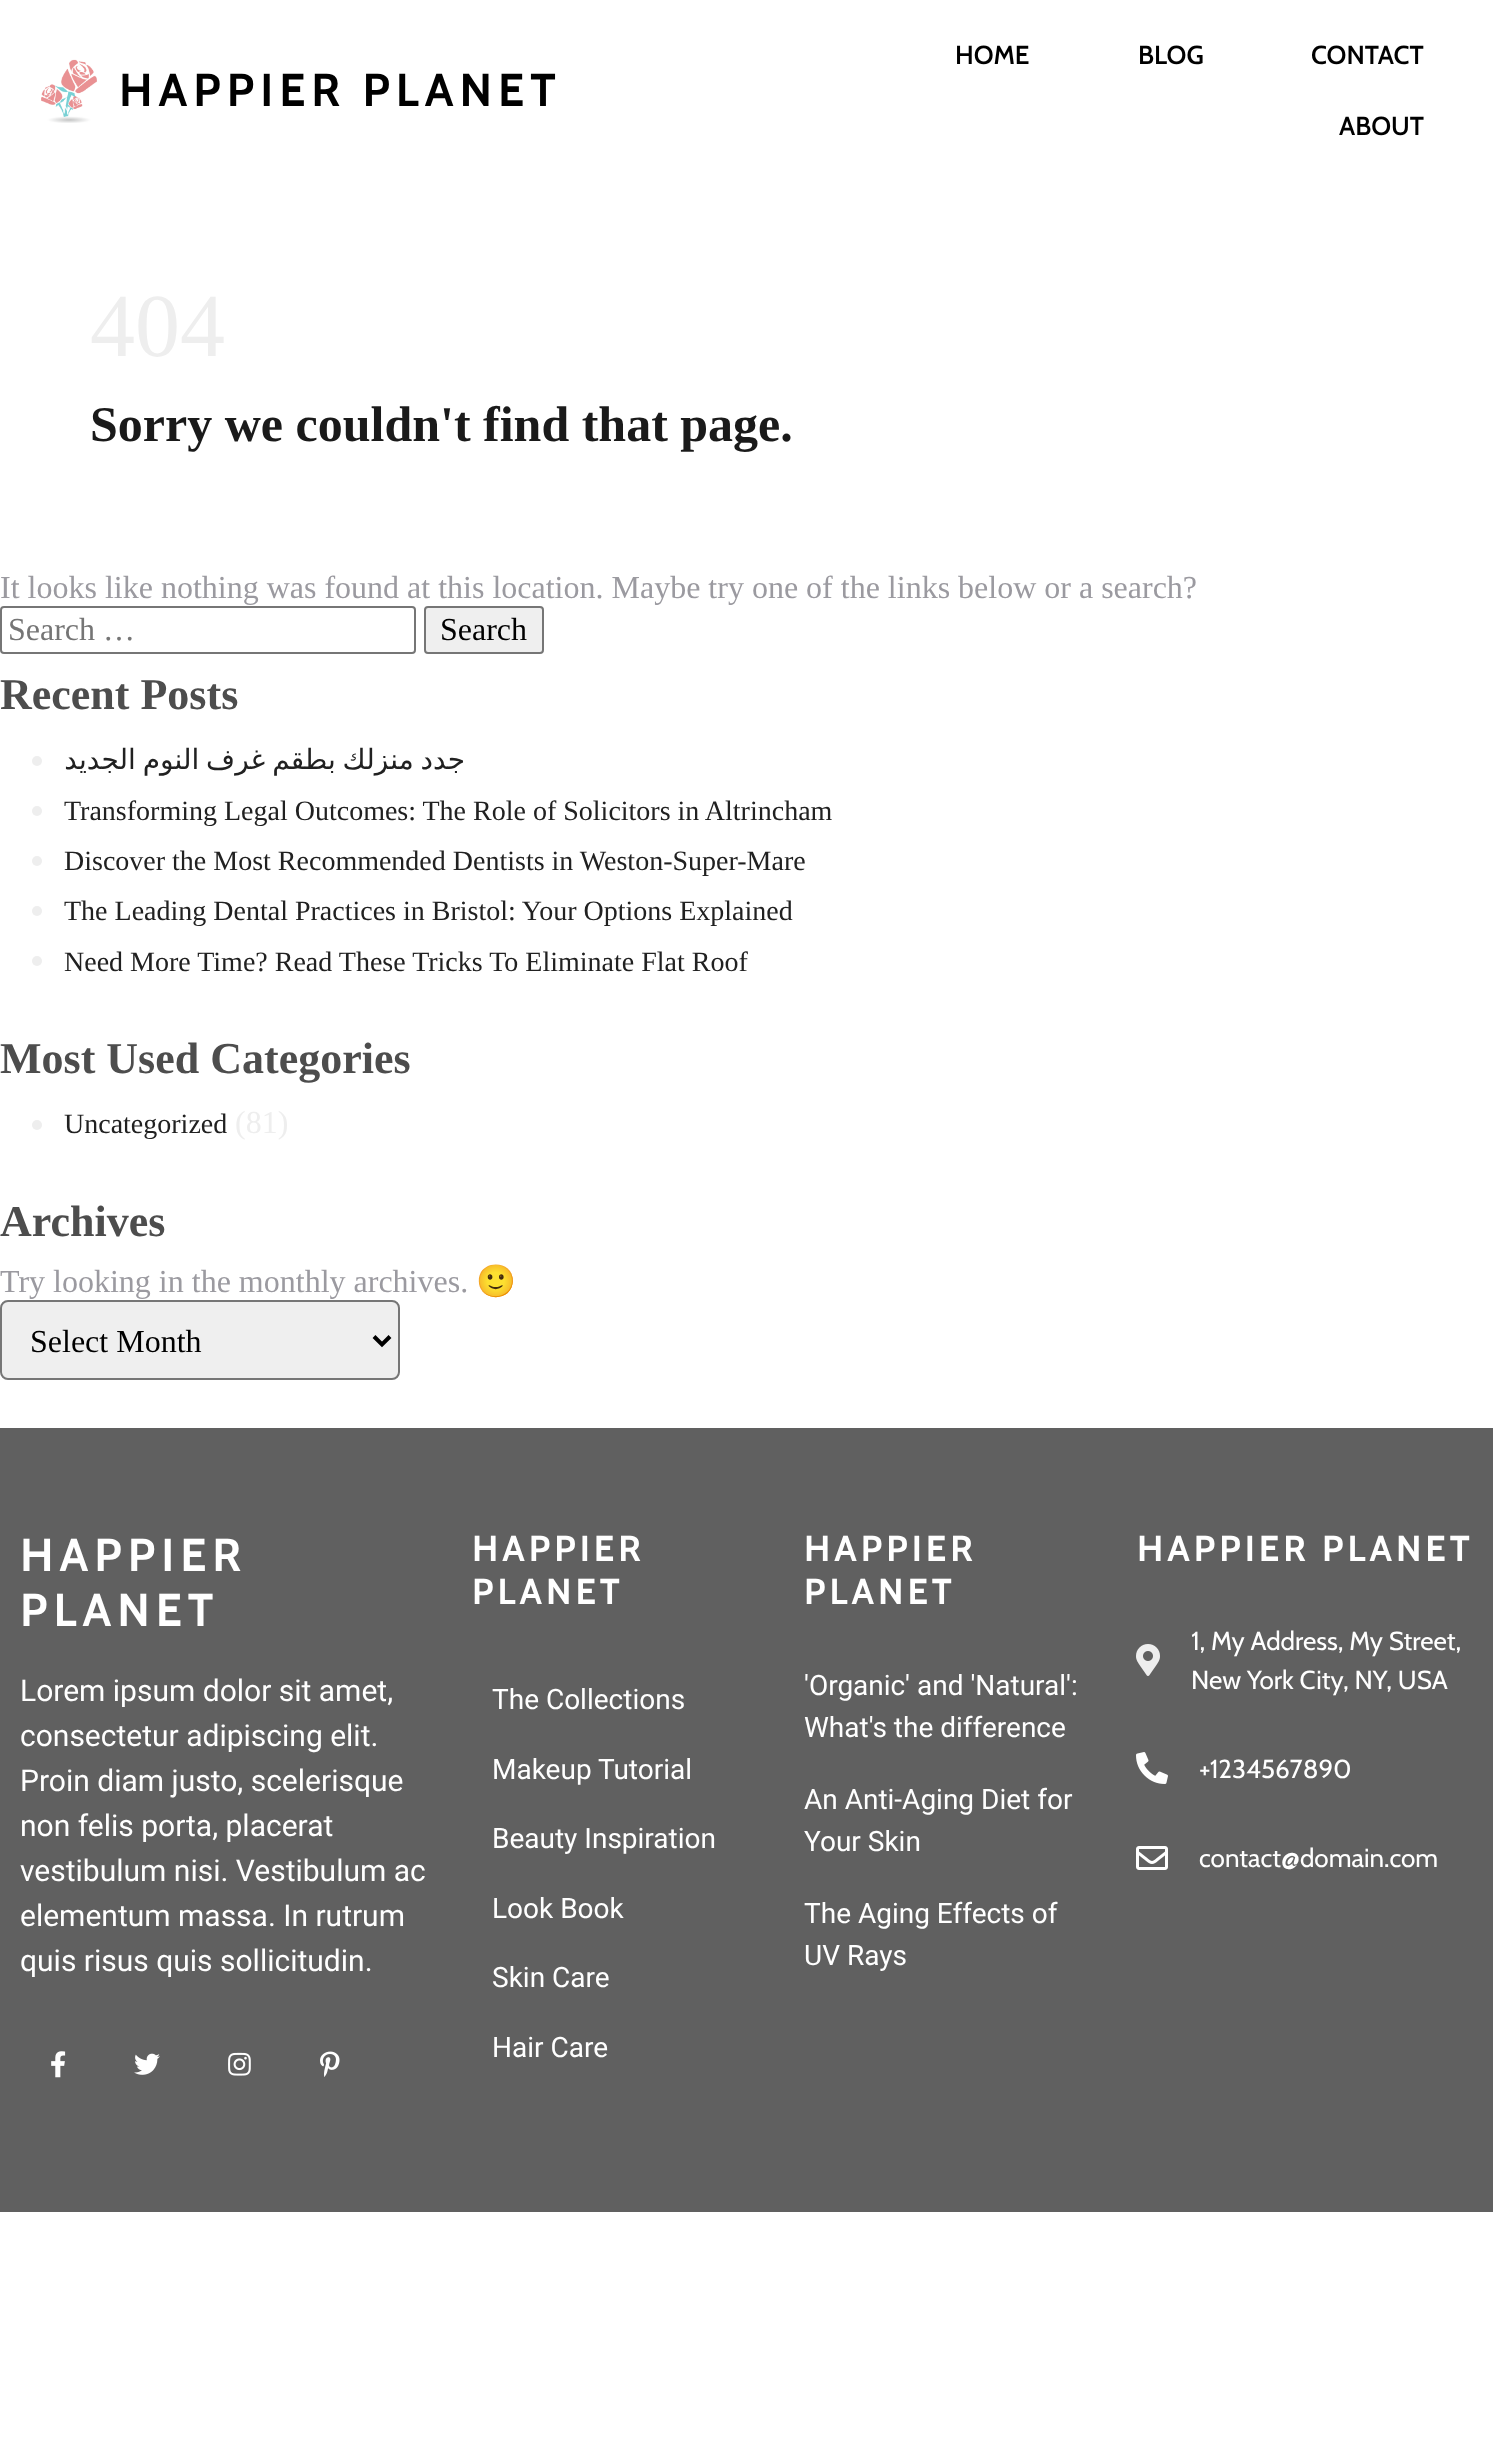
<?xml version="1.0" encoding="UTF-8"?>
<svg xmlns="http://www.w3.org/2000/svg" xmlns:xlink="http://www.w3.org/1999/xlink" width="1493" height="2441">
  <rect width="100%" height="100%" fill="#ffffff" />
  <image x="41" y="59" width="56" height="64" xlink:href="image1.png" />
  <rect x="1" y="607" width="414" height="46" rx="3" fill="none" stroke="#767676" stroke-width="2" />
  <rect x="425" y="607" width="118" height="46" rx="3" fill="#efefef" stroke="#767676" stroke-width="2" />
  <circle cx="37" cy="761" r="5" fill="#eeeeee" />
  <circle cx="37" cy="811" r="5" fill="#eeeeee" />
  <circle cx="37" cy="861" r="5" fill="#eeeeee" />
  <circle cx="37" cy="911" r="5" fill="#eeeeee" />
  <circle cx="37" cy="961" r="5" fill="#eeeeee" />
  <circle cx="37" cy="1125" r="5" fill="#eeeeee" />
  <rect x="1" y="1301" width="398" height="78" rx="7" fill="#efefef" stroke="#767676" stroke-width="2" />
  <path d="M 374 1336.5 l 8 8 l 8 -8" fill="none" stroke="#000000" stroke-width="4" />
  <rect y="1428" width="1493" height="784" fill="#606060" />
  <image x="51" y="2051" width="15" height="27" xlink:href="image2.png" />
  <image x="134" y="2053" width="26" height="22" xlink:href="image3.png" />
  <image x="228" y="2052" width="23" height="24" xlink:href="image4.png" />
  <image x="320" y="2051" width="20" height="26" xlink:href="image5.png" />
  <image x="1136" y="1644" width="24" height="32" xlink:href="image6.png" />
  <image x="1136" y="1752" width="32" height="32" xlink:href="image7.png" />
  <image x="1136" y="1846" width="32" height="24" xlink:href="image8.png" />
  <text x="119" y="106" style="font-family: Cabin; font-size: 46px; font-weight: bold; letter-spacing: 6px; fill: #000000">HAPPIER PLANET</text>
  <text x="955" y="64" style="font-family: Cabin; font-size: 26px; font-weight: 600; fill: #000000">HOME</text>
  <text x="1138" y="64" style="font-family: Cabin; font-size: 26px; font-weight: 600; fill: #000000">BLOG</text>
  <text x="1311" y="64" style="font-family: Cabin; font-size: 26px; font-weight: 600; fill: #000000">CONTACT</text>
  <text x="1339" y="135" style="font-family: Cabin; font-size: 26px; font-weight: 600; fill: #000000">ABOUT</text>
  <text x="90" y="356" style="font-family: Liberation Serif; font-size: 90px; fill: #eeeeee">404</text>
  <text x="90" y="441" style="font-family: Liberation Serif; font-size: 50px; font-weight: bold; fill: #1a1a1a">Sorry we couldn't find that page.</text>
  <text x="0" y="598" style="font-family: Liberation Serif; font-size: 32px; fill: #9b9aa0">It looks like nothing was found at this location. Maybe try one of the links below or a search?</text>
  <text x="8" y="640" style="font-family: Liberation Serif; font-size: 32px; fill: #757575">Search …</text>
  <text x="440" y="640" style="font-family: Liberation Serif; font-size: 32px; fill: #000000">Search</text>
  <text x="0" y="709" style="font-family: Liberation Serif; font-size: 44px; font-weight: bold; fill: #4d4d4d">Recent Posts</text>
  <text x="465" y="769" word-spacing="-2" style="font-family: DejaVu Sans; font-size: 28px; direction: rtl; fill: #212121">جدد منزلك بطقم غرف النوم الجديد</text>
  <text x="64" y="820" style="font-family: Liberation Serif; font-size: 28px; fill: #212121">Transforming Legal Outcomes: The Role of Solicitors in Altrincham</text>
  <text x="64" y="870" style="font-family: Liberation Serif; font-size: 28px; fill: #212121">Discover the Most Recommended Dentists in Weston-Super-Mare</text>
  <text x="64" y="920" style="font-family: Liberation Serif; font-size: 28px; fill: #212121">The Leading Dental Practices in Bristol: Your Options Explained</text>
  <text x="64" y="971" style="font-family: Liberation Serif; font-size: 28px; fill: #212121">Need More Time? Read These Tricks To Eliminate Flat Roof</text>
  <text x="0" y="1073" style="font-family: Liberation Serif; font-size: 44px; font-weight: bold; fill: #4d4d4d">Most Used Categories</text>
  <text x="64" y="1133" style="font-family: Liberation Serif; font-size: 28px; fill: #212121">Uncategorized</text>
  <text x="235" y="1133" style="font-family: Liberation Serif; font-size: 32px; fill: #eeeeee">(81)</text>
  <text x="0" y="1236" style="font-family: Liberation Serif; font-size: 44px; font-weight: bold; fill: #4d4d4d">Archives</text>
  <text x="0" y="1292" style="font-family: Liberation Serif; font-size: 32px; fill: #9b9aa0">Try looking in the monthly archives.</text>
  <text x="476" y="1292" style="font-family: Noto Color Emoji; font-size: 32px; fill: #9b9aa0">🙂</text>
  <text x="30" y="1352" style="font-family: Liberation Serif; font-size: 32px; fill: #000000">Select Month</text>
  <text x="20" y="1571" style="font-family: Cabin; font-size: 46px; font-weight: bold; letter-spacing: 6px; fill: #ffffff">HAPPIER</text>
  <text x="20" y="1626" style="font-family: Cabin; font-size: 46px; font-weight: bold; letter-spacing: 6px; fill: #ffffff">PLANET</text>
  <text x="20" y="1701" style="font-family: Roboto; font-size: 30px; fill: #ffffff">Lorem ipsum dolor sit amet,</text>
  <text x="20" y="1746" style="font-family: Roboto; font-size: 30px; fill: #ffffff">consectetur adipiscing elit.</text>
  <text x="20" y="1791" style="font-family: Roboto; font-size: 30px; fill: #ffffff">Proin diam justo, scelerisque</text>
  <text x="20" y="1836" style="font-family: Roboto; font-size: 30px; fill: #ffffff">non felis porta, placerat</text>
  <text x="20" y="1881" style="font-family: Roboto; font-size: 30px; fill: #ffffff">vestibulum nisi. Vestibulum ac</text>
  <text x="20" y="1926" style="font-family: Roboto; font-size: 30px; fill: #ffffff">elementum massa. In rutrum</text>
  <text x="20" y="1971" style="font-family: Roboto; font-size: 30px; fill: #ffffff">quis risus quis sollicitudin.</text>
  <text x="472" y="1561" style="font-family: Cabin; font-size: 36px; font-weight: bold; letter-spacing: 4px; fill: #ffffff">HAPPIER</text>
  <text x="472" y="1604" style="font-family: Cabin; font-size: 36px; font-weight: bold; letter-spacing: 4px; fill: #ffffff">PLANET</text>
  <text x="492" y="1709" style="font-family: Roboto; font-size: 28px; fill: #ffffff">The Collections</text>
  <text x="492" y="1779" style="font-family: Roboto; font-size: 28px; fill: #ffffff">Makeup Tutorial</text>
  <text x="492" y="1848" style="font-family: Roboto; font-size: 28px; fill: #ffffff">Beauty Inspiration</text>
  <text x="492" y="1918" style="font-family: Roboto; font-size: 28px; fill: #ffffff">Look Book</text>
  <text x="492" y="1987" style="font-family: Roboto; font-size: 28px; fill: #ffffff">Skin Care</text>
  <text x="492" y="2057" style="font-family: Roboto; font-size: 28px; fill: #ffffff">Hair Care</text>
  <text x="804" y="1561" style="font-family: Cabin; font-size: 36px; font-weight: bold; letter-spacing: 4px; fill: #ffffff">HAPPIER</text>
  <text x="804" y="1604" style="font-family: Cabin; font-size: 36px; font-weight: bold; letter-spacing: 4px; fill: #ffffff">PLANET</text>
  <text x="804" y="1695" style="font-family: Roboto; font-size: 28px; fill: #ffffff">'Organic' and 'Natural':</text>
  <text x="804" y="1737" style="font-family: Roboto; font-size: 28px; fill: #ffffff">What's the difference</text>
  <text x="804" y="1809" style="font-family: Roboto; font-size: 28px; fill: #ffffff">An Anti-Aging Diet for</text>
  <text x="804" y="1851" style="font-family: Roboto; font-size: 28px; fill: #ffffff">Your Skin</text>
  <text x="804" y="1923" style="font-family: Roboto; font-size: 28px; fill: #ffffff">The Aging Effects of</text>
  <text x="804" y="1965" style="font-family: Roboto; font-size: 28px; fill: #ffffff">UV Rays</text>
  <text x="1137" y="1561" style="font-family: Cabin; font-size: 36px; font-weight: bold; letter-spacing: 4px; fill: #ffffff">HAPPIER PLANET</text>
  <text x="1191" y="1650" style="font-family: Cabin; font-size: 26px; fill: #ffffff">1, My Address, My Street,</text>
  <text x="1191" y="1689" style="font-family: Cabin; font-size: 26px; fill: #ffffff">New York City, NY, USA</text>
  <text x="1199" y="1778" style="font-family: Cabin; font-size: 26px; fill: #ffffff">+1234567890</text>
  <text x="1199" y="1867" style="font-family: Cabin; font-size: 26px; fill: #ffffff">contact@domain.com</text>
</svg>
